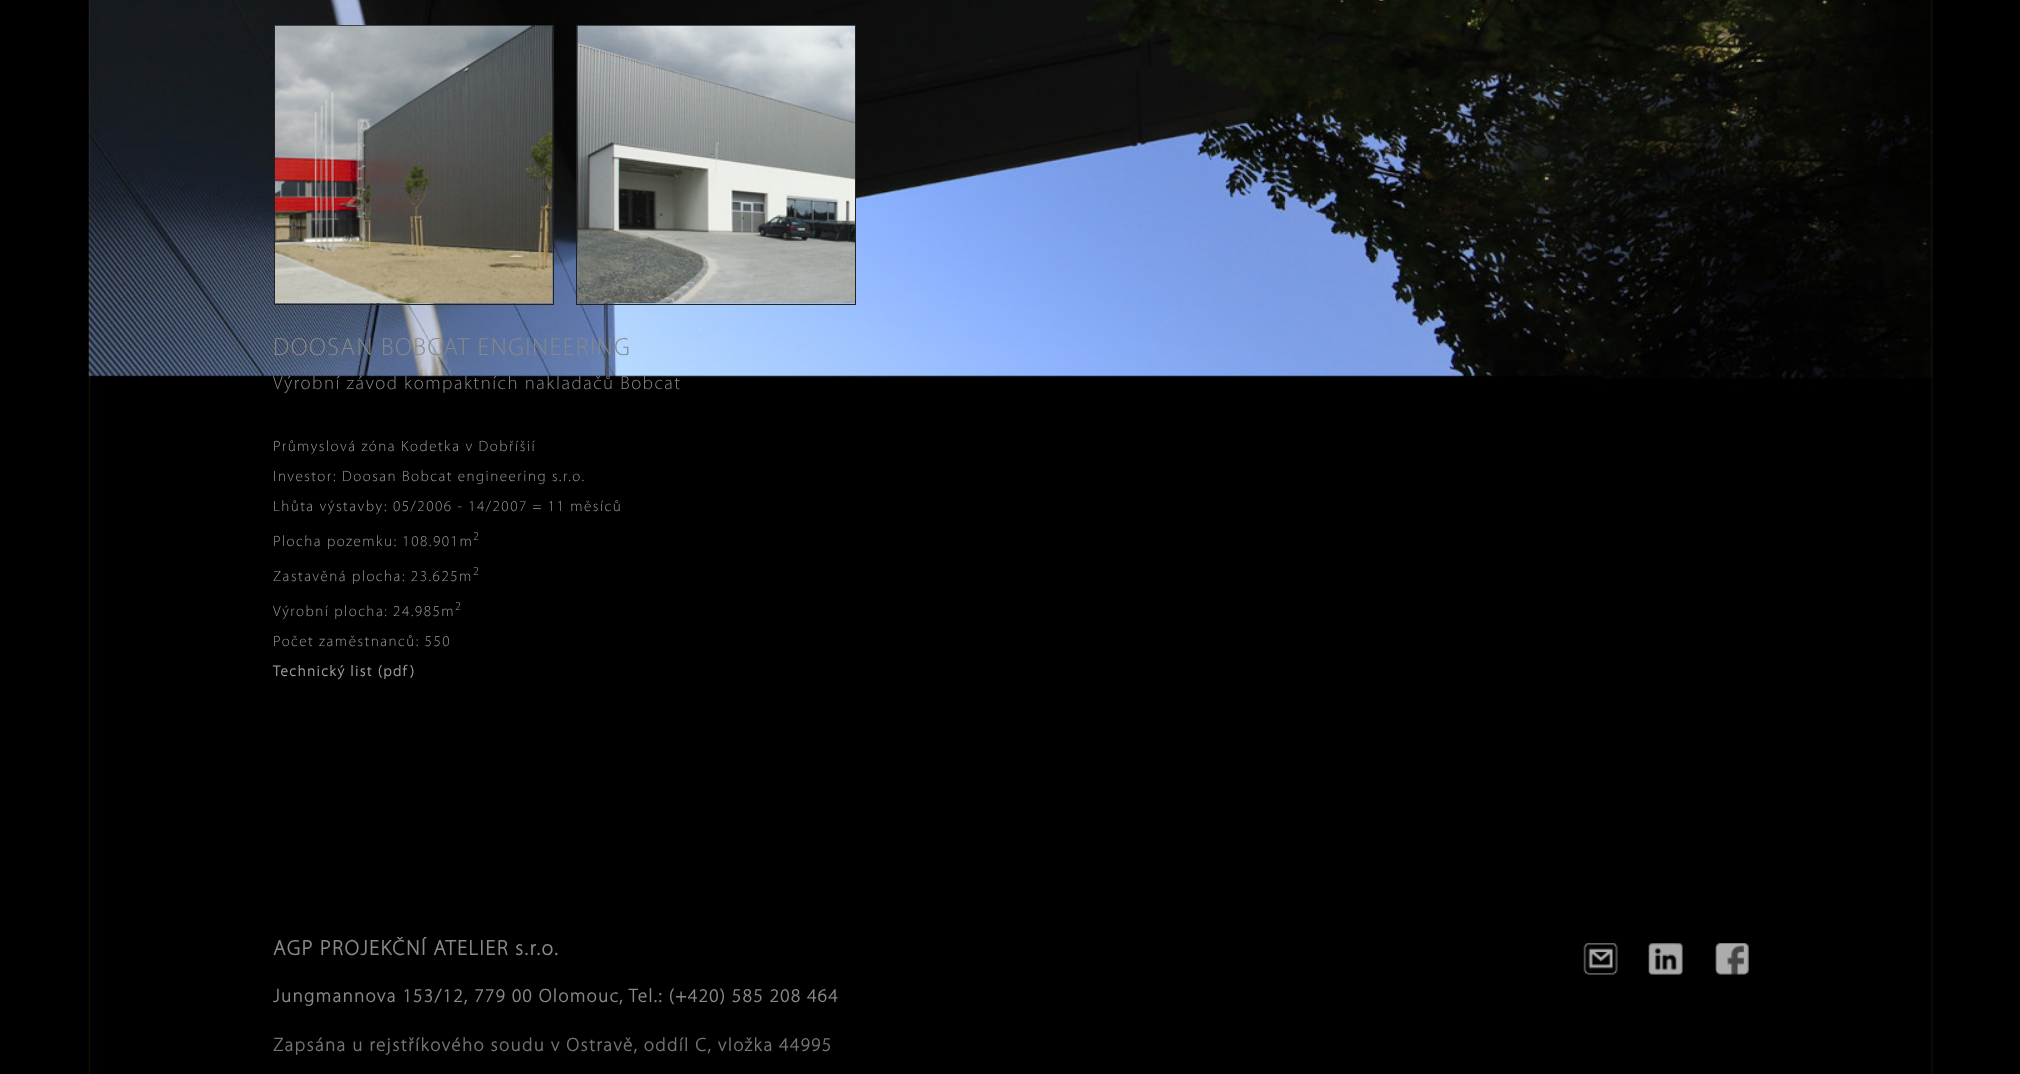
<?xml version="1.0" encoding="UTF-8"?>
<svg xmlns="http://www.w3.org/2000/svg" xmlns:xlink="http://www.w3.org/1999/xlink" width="2020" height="1074">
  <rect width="100%" height="100%" fill="#000000" />
  <image x="88" y="0" width="1845" height="1074" xlink:href="image1.png" />
  <rect x="274.5" y="25.5" width="279" height="279" fill="none" stroke="#222222" />
  <image x="275" y="25" width="278" height="279" xlink:href="image2.png" />
  <rect x="576.5" y="25.5" width="279" height="279" fill="none" stroke="#222222" />
  <image x="577" y="25" width="278" height="279" xlink:href="image3.png" />
  <image x="1583" y="943" width="35" height="32" xlink:href="image4.png" />
  <image x="1648" y="943" width="35" height="32" xlink:href="image5.png" />
  <image x="1715" y="943" width="34" height="32" xlink:href="image6.png" />
  <text x="273" y="355" style="font-family: Myriad; font-size: 25px; font-weight: 300; letter-spacing: 1.5px; fill: #888888">DOOSAN BOBCAT ENGINEERING</text>
  <text x="273" y="389" style="font-family: Myriad; font-size: 18.75px; font-weight: 300; letter-spacing: 1.5px; fill: #888888">Výrobní závod kompaktních nakladačů Bobcat</text>
  <text x="273" y="451" style="font-family: Myriad; font-size: 15px; font-weight: 300; letter-spacing: 1.5px; fill: #999999">Průmyslová zóna Kodetka v Dobříšií</text>
  <text x="273" y="481" style="font-family: Myriad; font-size: 15px; font-weight: 300; letter-spacing: 1.5px; fill: #999999">Investor: Doosan Bobcat engineering s.r.o.</text>
  <text x="273" y="511" style="font-family: Myriad; font-size: 15px; font-weight: 300; letter-spacing: 1.5px; fill: #999999">Lhůta výstavby: 05/2006 - 14/2007 = 11 měsíců</text>
  <text x="273" y="546" style="font-family: Myriad; font-size: 15px; font-weight: 300; letter-spacing: 1.5px; fill: #999999">Plocha pozemku: 108.901m</text>
  <text x="473" y="540" style="font-family: Myriad; font-size: 12px; font-weight: 300; letter-spacing: 1.5px; fill: #999999">2</text>
  <text x="273" y="581" style="font-family: Myriad; font-size: 15px; font-weight: 300; letter-spacing: 1.5px; fill: #999999">Zastavěná plocha: 23.625m</text>
  <text x="473" y="575" style="font-family: Myriad; font-size: 12px; font-weight: 300; letter-spacing: 1.5px; fill: #999999">2</text>
  <text x="273" y="616" style="font-family: Myriad; font-size: 15px; font-weight: 300; letter-spacing: 1.5px; fill: #999999">Výrobní plocha: 24.985m</text>
  <text x="455" y="610" style="font-family: Myriad; font-size: 12px; font-weight: 300; letter-spacing: 1.5px; fill: #999999">2</text>
  <text x="273" y="646" style="font-family: Myriad; font-size: 15px; font-weight: 300; letter-spacing: 1.5px; fill: #999999">Počet zaměstnanců: 550</text>
  <text x="273" y="676" style="font-family: Myriad; font-size: 15px; font-weight: bold; letter-spacing: 1.5px; fill: #a0a0a0">Technický list (pdf)</text>
  <text x="273" y="955" style="font-family: Myriad; font-size: 21.25px; font-weight: bold; letter-spacing: 1.5px; fill: #888888">AGP PROJEKČNÍ ATELIER s.r.o.</text>
  <text x="273" y="1002" style="font-family: Myriad; font-size: 18.75px; font-weight: bold; letter-spacing: 1.5px; fill: #888888">Jungmannova 153/12, 779 00 Olomouc, Tel.: (+420) 585 208 464</text>
  <text x="273" y="1051" style="font-family: Myriad; font-size: 18.75px; font-weight: bold; letter-spacing: 1.5px; fill: #747474">Zapsána u rejstříkového soudu v Ostravě, oddíl C, vložka 44995</text>
</svg>
